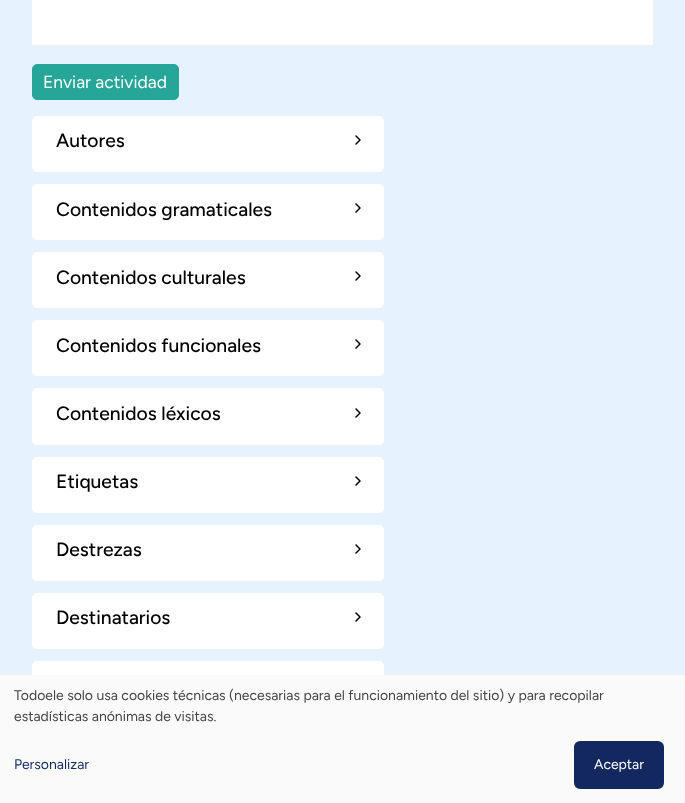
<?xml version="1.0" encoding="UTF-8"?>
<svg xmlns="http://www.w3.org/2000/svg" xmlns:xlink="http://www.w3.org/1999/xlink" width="685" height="803">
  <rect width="100%" height="100%" fill="#e6f3ff" />
  <rect x="32" width="621" height="45" fill="#ffffff" />
  <rect x="32.5" y="64.5" width="146" height="35" rx="4.5" fill="#26a699" stroke="#26a69a" />
  <rect x="32" y="116" width="352" height="56" rx="5" fill="#ffffff" />
  <path d="M 356 136 l 4 4 l -4 4" fill="none" stroke="#000000" stroke-width="1.5" stroke-linecap="round" stroke-linejoin="round" />
  <rect x="32" y="184" width="352" height="56" rx="5" fill="#ffffff" />
  <path d="M 356 204 l 4 4 l -4 4" fill="none" stroke="#000000" stroke-width="1.5" stroke-linecap="round" stroke-linejoin="round" />
  <rect x="32" y="252" width="352" height="56" rx="5" fill="#ffffff" />
  <path d="M 356 272 l 4 4 l -4 4" fill="none" stroke="#000000" stroke-width="1.5" stroke-linecap="round" stroke-linejoin="round" />
  <rect x="32" y="320" width="352" height="56" rx="5" fill="#ffffff" />
  <path d="M 356 340 l 4 4 l -4 4" fill="none" stroke="#000000" stroke-width="1.5" stroke-linecap="round" stroke-linejoin="round" />
  <rect x="32" y="388" width="352" height="57" rx="5" fill="#ffffff" />
  <path d="M 356 409 l 4 4 l -4 4" fill="none" stroke="#000000" stroke-width="1.5" stroke-linecap="round" stroke-linejoin="round" />
  <rect x="32" y="457" width="352" height="56" rx="5" fill="#ffffff" />
  <path d="M 356 477 l 4 4 l -4 4" fill="none" stroke="#000000" stroke-width="1.5" stroke-linecap="round" stroke-linejoin="round" />
  <rect x="32" y="525" width="352" height="56" rx="5" fill="#ffffff" />
  <path d="M 356 545 l 4 4 l -4 4" fill="none" stroke="#000000" stroke-width="1.5" stroke-linecap="round" stroke-linejoin="round" />
  <rect x="32" y="593" width="352" height="56" rx="5" fill="#ffffff" />
  <path d="M 356 613 l 4 4 l -4 4" fill="none" stroke="#000000" stroke-width="1.5" stroke-linecap="round" stroke-linejoin="round" />
  <rect x="32" y="661" width="352" height="56" rx="5" fill="#ffffff" />
  <rect y="675" width="685" height="128" fill="#fafafa" />
  <rect x="575.5" y="742.5" width="87" height="45" rx="4.5" fill="#12285f" stroke="#12285f" stroke-width="3" />
  <text x="43" y="88" style="font-family: Figtree; font-size: 17.5px; fill: #ffffff">Enviar actividad</text>
  <text x="56" y="147" style="font-family: Figtree; font-size: 19.25px; font-weight: 500; fill: #000000">Autores</text>
  <text x="56" y="216" style="font-family: Figtree; font-size: 19.25px; font-weight: 500; fill: #000000">Contenidos gramaticales</text>
  <text x="56" y="284" style="font-family: Figtree; font-size: 19.25px; font-weight: 500; fill: #000000">Contenidos culturales</text>
  <text x="56" y="352" style="font-family: Figtree; font-size: 19.25px; font-weight: 500; fill: #000000">Contenidos funcionales</text>
  <text x="56" y="420" style="font-family: Figtree; font-size: 19.25px; font-weight: 500; fill: #000000">Contenidos léxicos</text>
  <text x="56" y="488" style="font-family: Figtree; font-size: 19.25px; font-weight: 500; fill: #000000">Etiquetas</text>
  <text x="56" y="556" style="font-family: Figtree; font-size: 19.25px; font-weight: 500; fill: #000000">Destrezas</text>
  <text x="56" y="624" style="font-family: Figtree; font-size: 19.25px; font-weight: 500; fill: #000000">Destinatarios</text>
  <text x="14" y="700" style="font-family: Figtree; font-size: 14px; fill: #444444">Todoele solo usa cookies técnicas (necesarias para el funcionamiento del sitio) y para recopilar</text>
  <text x="14" y="721" style="font-family: Figtree; font-size: 14px; fill: #444444">estadísticas anónimas de visitas.</text>
  <text x="14" y="769" style="font-family: Figtree; font-size: 14px; fill: #12285f">Personalizar</text>
  <text x="594" y="769" style="font-family: Figtree; font-size: 14px; fill: #ffffff">Aceptar</text>
</svg>
